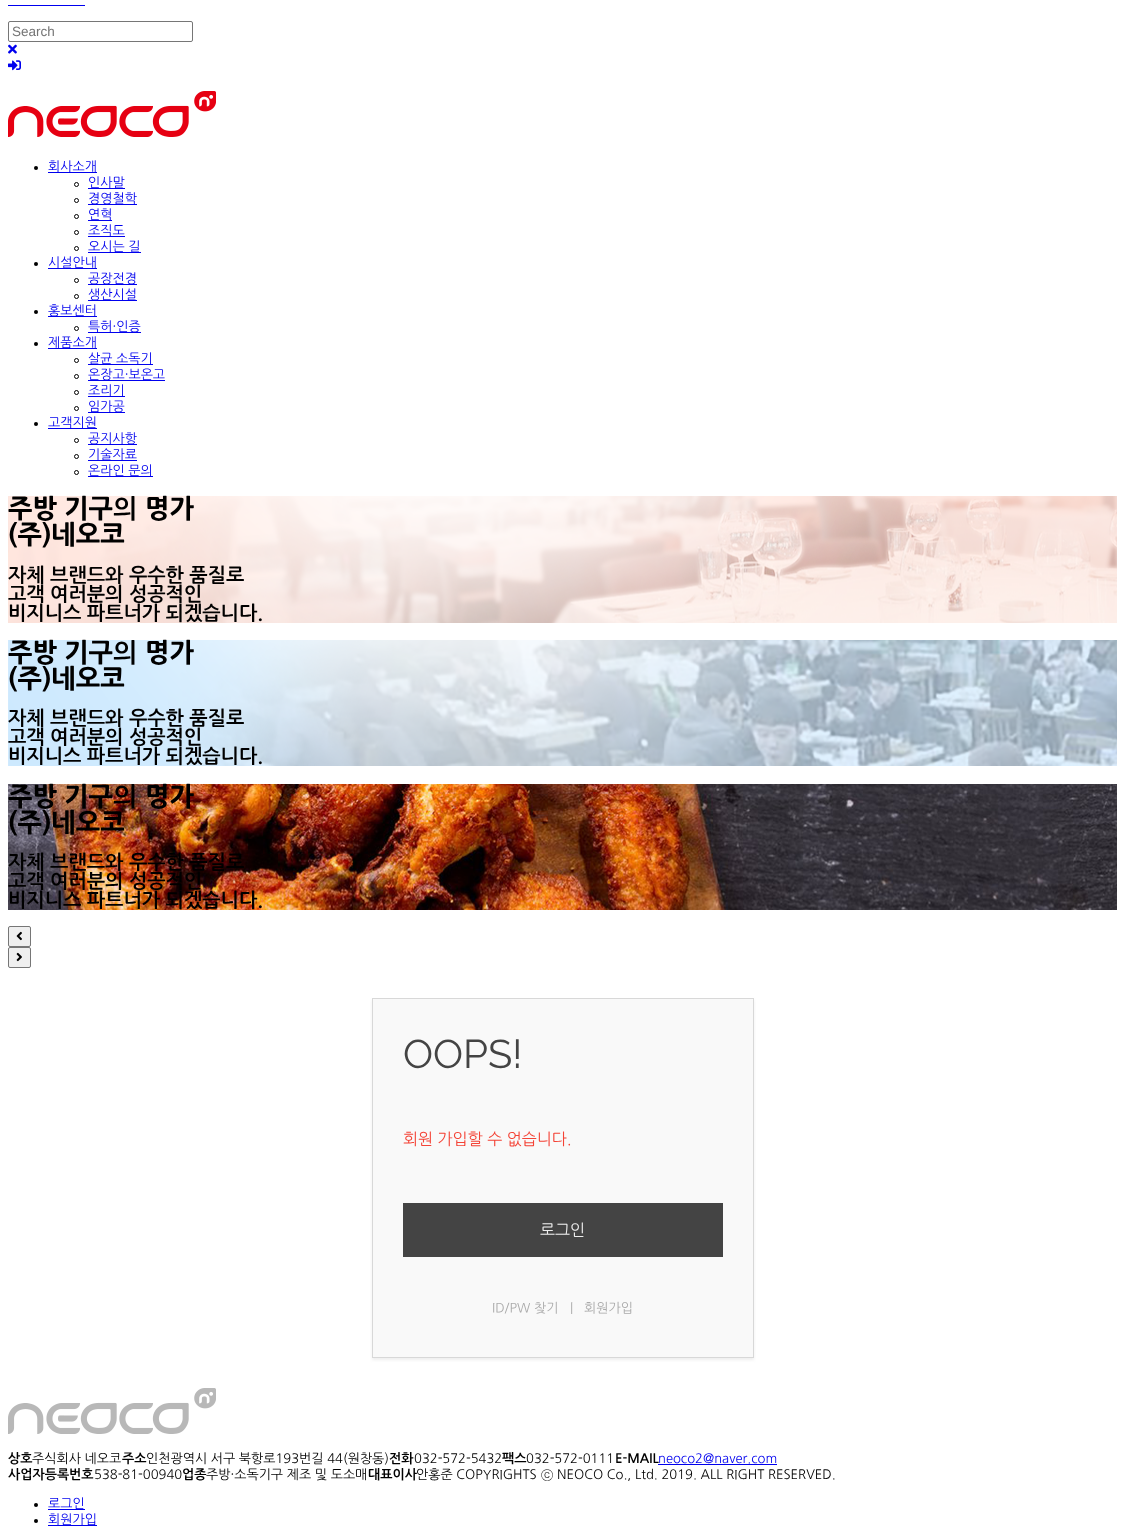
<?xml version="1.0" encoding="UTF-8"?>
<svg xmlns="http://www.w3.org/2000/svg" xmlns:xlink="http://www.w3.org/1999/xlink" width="1125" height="1537">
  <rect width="100%" height="100%" fill="#ffffff" />
  <rect x="8" y="5" width="77" height="1" fill="#0000ee" />
  <rect x="8.5" y="21.5" width="184" height="20" rx="1.5" fill="none" stroke="#767676" />
  <image x="8" y="44" width="9" height="10" xlink:href="image1.png" />
  <image x="8" y="60" width="13" height="11" xlink:href="image2.png" />
  <image x="8" y="91" width="208" height="46" xlink:href="image3.png" />
  <circle cx="36" cy="168" r="2" fill="#000000" />
  <rect x="48" y="172" width="49" height="1" fill="#0000ee" />
  <circle cx="76.5" cy="184.5" r="2" fill="none" stroke="#000000" />
  <rect x="88" y="188" width="37" height="1" fill="#0000ee" />
  <circle cx="76.5" cy="200.5" r="2" fill="none" stroke="#000000" />
  <rect x="88" y="204" width="49" height="1" fill="#0000ee" />
  <circle cx="76.5" cy="216.5" r="2" fill="none" stroke="#000000" />
  <rect x="88" y="220" width="24" height="1" fill="#0000ee" />
  <circle cx="76.5" cy="232.5" r="2" fill="none" stroke="#000000" />
  <rect x="88" y="236" width="37" height="1" fill="#0000ee" />
  <circle cx="76.5" cy="248.5" r="2" fill="none" stroke="#000000" />
  <rect x="88" y="252" width="53" height="1" fill="#0000ee" />
  <circle cx="36" cy="264" r="2" fill="#000000" />
  <rect x="48" y="268" width="49" height="1" fill="#0000ee" />
  <circle cx="76.5" cy="280.5" r="2" fill="none" stroke="#000000" />
  <rect x="88" y="284" width="49" height="1" fill="#0000ee" />
  <circle cx="76.5" cy="296.5" r="2" fill="none" stroke="#000000" />
  <rect x="88" y="300" width="49" height="1" fill="#0000ee" />
  <circle cx="36" cy="312" r="2" fill="#000000" />
  <rect x="48" y="316" width="49" height="1" fill="#0000ee" />
  <circle cx="76.5" cy="328.5" r="2" fill="none" stroke="#000000" />
  <rect x="88" y="332" width="53" height="1" fill="#0000ee" />
  <circle cx="36" cy="344" r="2" fill="#000000" />
  <rect x="48" y="348" width="49" height="1" fill="#0000ee" />
  <circle cx="76.5" cy="360.5" r="2" fill="none" stroke="#000000" />
  <rect x="88" y="364" width="65" height="1" fill="#0000ee" />
  <circle cx="76.5" cy="376.5" r="2" fill="none" stroke="#000000" />
  <rect x="88" y="380" width="77" height="1" fill="#0000ee" />
  <circle cx="76.5" cy="392.5" r="2" fill="none" stroke="#000000" />
  <rect x="88" y="396" width="37" height="1" fill="#0000ee" />
  <circle cx="76.5" cy="408.5" r="2" fill="none" stroke="#000000" />
  <rect x="88" y="412" width="37" height="1" fill="#0000ee" />
  <circle cx="36" cy="424" r="2" fill="#000000" />
  <rect x="48" y="428" width="49" height="1" fill="#0000ee" />
  <circle cx="76.5" cy="440.5" r="2" fill="none" stroke="#000000" />
  <rect x="88" y="444" width="49" height="1" fill="#0000ee" />
  <circle cx="76.5" cy="456.5" r="2" fill="none" stroke="#000000" />
  <rect x="88" y="460" width="49" height="1" fill="#0000ee" />
  <circle cx="76.5" cy="472.5" r="2" fill="none" stroke="#000000" />
  <rect x="88" y="476" width="65" height="1" fill="#0000ee" />
  <image x="8" y="496" width="1109" height="127" xlink:href="image4.png" />
  <image x="8" y="640" width="1109" height="126" xlink:href="image5.png" />
  <image x="8" y="784" width="1109" height="126" xlink:href="image6.png" />
  <rect x="8.5" y="926.5" width="22" height="20" rx="1.5" fill="#efefef" stroke="#767676" />
  <image x="16" y="931" width="6" height="10" xlink:href="image7.png" />
  <rect x="8.5" y="947.5" width="22" height="20" rx="1.5" fill="#efefef" stroke="#767676" />
  <image x="16" y="952" width="6" height="10" xlink:href="image8.png" />
  <rect x="372" y="1000" width="382" height="360" fill="#eeeeee" filter="blur(1.5px)" />
  <rect x="373" y="1000" width="380" height="357" fill="#f9f9f9" />
  <rect x="372.5" y="998.5" width="381" height="359" fill="none" stroke="#d8d8d8" />
  <rect x="403" y="1203" width="320" height="54" fill="#444444" />
  <image x="8" y="1388" width="208" height="46" xlink:href="image9.png" />
  <rect x="658" y="1464" width="119" height="1" fill="#0000ee" />
  <circle cx="36" cy="1505" r="2" fill="#000000" />
  <rect x="48" y="1509" width="37" height="1" fill="#0000ee" />
  <circle cx="36" cy="1521" r="2" fill="#000000" />
  <rect x="48" y="1525" width="49" height="1" fill="#0000ee" />
  <text x="12" y="36" style="font-family: Liberation Sans; font-size: 13.5px; fill: #757575">Search</text>
  <text x="48" y="171" style="font-family: NanumGothic; font-size: 13px; fill: #0000ee">회사소개</text>
  <text x="88" y="187" style="font-family: NanumGothic; font-size: 13px; fill: #0000ee">인사말</text>
  <text x="88" y="203" style="font-family: NanumGothic; font-size: 13px; fill: #0000ee">경영철학</text>
  <text x="88" y="219" style="font-family: NanumGothic; font-size: 13px; fill: #0000ee">연혁</text>
  <text x="88" y="235" style="font-family: NanumGothic; font-size: 13px; fill: #0000ee">조직도</text>
  <text x="88" y="251" style="font-family: NanumGothic; font-size: 13px; fill: #0000ee">오시는 길</text>
  <text x="48" y="267" style="font-family: NanumGothic; font-size: 13px; fill: #0000ee">시설안내</text>
  <text x="88" y="283" style="font-family: NanumGothic; font-size: 13px; fill: #0000ee">공장전경</text>
  <text x="88" y="299" style="font-family: NanumGothic; font-size: 13px; fill: #0000ee">생산시설</text>
  <text x="48" y="315" style="font-family: NanumGothic; font-size: 13px; fill: #0000ee">홍보센터</text>
  <text x="88" y="331" style="font-family: NanumGothic; font-size: 13px; fill: #0000ee">특허·인증</text>
  <text x="48" y="347" style="font-family: NanumGothic; font-size: 13px; fill: #0000ee">제품소개</text>
  <text x="88" y="363" style="font-family: NanumGothic; font-size: 13px; fill: #0000ee">살균 소독기</text>
  <text x="88" y="379" style="font-family: NanumGothic; font-size: 13px; fill: #0000ee">온장고·보온고</text>
  <text x="88" y="395" style="font-family: NanumGothic; font-size: 13px; fill: #0000ee">조리기</text>
  <text x="88" y="411" style="font-family: NanumGothic; font-size: 13px; fill: #0000ee">임가공</text>
  <text x="48" y="427" style="font-family: NanumGothic; font-size: 13px; fill: #0000ee">고객지원</text>
  <text x="88" y="443" style="font-family: NanumGothic; font-size: 13px; fill: #0000ee">공지사항</text>
  <text x="88" y="459" style="font-family: NanumGothic; font-size: 13px; fill: #0000ee">기술자료</text>
  <text x="88" y="475" style="font-family: NanumGothic; font-size: 13px; fill: #0000ee">온라인 문의</text>
  <text x="8" y="518" style="font-family: NanumGothic; font-size: 26px; font-weight: 800; fill: #000000">주방 기구</text>
  <text x="113" y="518" style="font-family: NanumGothic; font-size: 26px; font-weight: bold; fill: #000000">의</text>
  <text x="145" y="518" style="font-family: NanumGothic; font-size: 26px; font-weight: 800; fill: #000000">명가</text>
  <text x="8" y="544" style="font-family: NanumGothic; font-size: 26px; font-weight: 800; fill: #000000">(주)네오코</text>
  <text x="8" y="582" style="font-family: NanumGothic; font-size: 19.5px; font-weight: bold; fill: #000000">자체 브랜드와 우수한 품질로</text>
  <text x="8" y="601" style="font-family: NanumGothic; font-size: 19.5px; font-weight: bold; fill: #000000">고객 여러분의 성공적인</text>
  <text x="8" y="620" style="font-family: NanumGothic; font-size: 19.5px; font-weight: bold; fill: #000000">비지니스 파트너가 되겠습니다.</text>
  <text x="8" y="662" style="font-family: NanumGothic; font-size: 26px; font-weight: 800; fill: #000000">주방 기구</text>
  <text x="113" y="662" style="font-family: NanumGothic; font-size: 26px; font-weight: bold; fill: #000000">의</text>
  <text x="145" y="662" style="font-family: NanumGothic; font-size: 26px; font-weight: 800; fill: #000000">명가</text>
  <text x="8" y="688" style="font-family: NanumGothic; font-size: 26px; font-weight: 800; fill: #000000">(주)네오코</text>
  <text x="8" y="725" style="font-family: NanumGothic; font-size: 19.5px; font-weight: bold; fill: #000000">자체 브랜드와 우수한 품질로</text>
  <text x="8" y="744" style="font-family: NanumGothic; font-size: 19.5px; font-weight: bold; fill: #000000">고객 여러분의 성공적인</text>
  <text x="8" y="763" style="font-family: NanumGothic; font-size: 19.5px; font-weight: bold; fill: #000000">비지니스 파트너가 되겠습니다.</text>
  <text x="8" y="806" style="font-family: NanumGothic; font-size: 26px; font-weight: 800; fill: #000000">주방 기구</text>
  <text x="113" y="806" style="font-family: NanumGothic; font-size: 26px; font-weight: bold; fill: #000000">의</text>
  <text x="145" y="806" style="font-family: NanumGothic; font-size: 26px; font-weight: 800; fill: #000000">명가</text>
  <text x="8" y="832" style="font-family: NanumGothic; font-size: 26px; font-weight: 800; fill: #000000">(주)네오코</text>
  <text x="8" y="869" style="font-family: NanumGothic; font-size: 19.5px; font-weight: bold; fill: #000000">자체 브랜드와 우수한 품질로</text>
  <text x="8" y="888" style="font-family: NanumGothic; font-size: 19.5px; font-weight: bold; fill: #000000">고객 여러분의 성공적인</text>
  <text x="8" y="907" style="font-family: NanumGothic; font-size: 19.5px; font-weight: bold; fill: #000000">비지니스 파트너가 되겠습니다.</text>
  <text x="403" y="1068" style="font-family: Raleway; font-size: 40px; fill: #444444">OOPS!</text>
  <text x="403" y="1144" style="font-family: 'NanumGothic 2'; font-size: 16px; fill: #f44336">회원 가입할 수 없습니다.</text>
  <text x="540" y="1235" style="font-family: 'NanumGothic 2'; font-size: 16px; fill: #eeeeee">로그인</text>
  <text x="492" y="1312" style="font-family: 'NanumGothic 2'; font-size: 13px; fill: #aaaaaa">ID/PW 찾기</text>
  <text x="570" y="1312" style="font-family: 'NanumGothic 2'; font-size: 13px; fill: #aaaaaa">|</text>
  <text x="584" y="1312" style="font-family: 'NanumGothic 2'; font-size: 13px; fill: #aaaaaa">회원가입</text>
  <text x="8" y="1463" style="font-family: NanumGothic; font-size: 13px; font-weight: bold; fill: #000000">상호</text>
  <text x="32" y="1463" style="font-family: NanumGothic; font-size: 13px; fill: #000000">주식회사 네오코</text>
  <text x="122" y="1463" style="font-family: NanumGothic; font-size: 13px; font-weight: bold; fill: #000000">주소</text>
  <text x="146" y="1463" style="font-family: NanumGothic; font-size: 13px; fill: #000000">인천광역시 서구 북항로193번길 44(원창동)</text>
  <text x="389" y="1463" style="font-family: NanumGothic; font-size: 13px; font-weight: bold; fill: #000000">전화</text>
  <text x="414" y="1463" style="font-family: NanumGothic; font-size: 13px; fill: #000000">032-572-5432</text>
  <text x="502" y="1463" style="font-family: NanumGothic; font-size: 13px; font-weight: bold; fill: #000000">팩스</text>
  <text x="526" y="1463" style="font-family: NanumGothic; font-size: 13px; fill: #000000">032-572-0111</text>
  <text x="615" y="1463" style="font-family: NanumGothic; font-size: 13px; font-weight: bold; fill: #000000">E-MAIL</text>
  <text x="658" y="1463" style="font-family: NanumGothic; font-size: 13px; fill: #0000ee">neoco2@naver.com</text>
  <text x="8" y="1479" style="font-family: NanumGothic; font-size: 13px; font-weight: bold; fill: #000000">사업자등록번호</text>
  <text x="94" y="1479" style="font-family: NanumGothic; font-size: 13px; fill: #000000">538-81-00940</text>
  <text x="182" y="1479" style="font-family: NanumGothic; font-size: 13px; font-weight: bold; fill: #000000">업종</text>
  <text x="206" y="1479" style="font-family: NanumGothic; font-size: 13px; fill: #000000">주방·소독기구 제조 및 도소매</text>
  <text x="368" y="1479" style="font-family: NanumGothic; font-size: 13px; font-weight: bold; fill: #000000">대표이사</text>
  <text x="416" y="1479" style="font-family: NanumGothic; font-size: 13px; fill: #000000">안홍준 COPYRIGHTS</text>
  <text x="541" y="1479" style="font-family: 'NanumGothic 2'; font-size: 13px; fill: #000000">ⓒ</text>
  <text x="557" y="1479" style="font-family: NanumGothic; font-size: 13px; fill: #000000">NEOCO Co., Ltd. 2019. ALL RIGHT RESERVED.</text>
  <text x="48" y="1508" style="font-family: NanumGothic; font-size: 13px; fill: #0000ee">로그인</text>
  <text x="48" y="1524" style="font-family: NanumGothic; font-size: 13px; fill: #0000ee">회원가입</text>
</svg>
